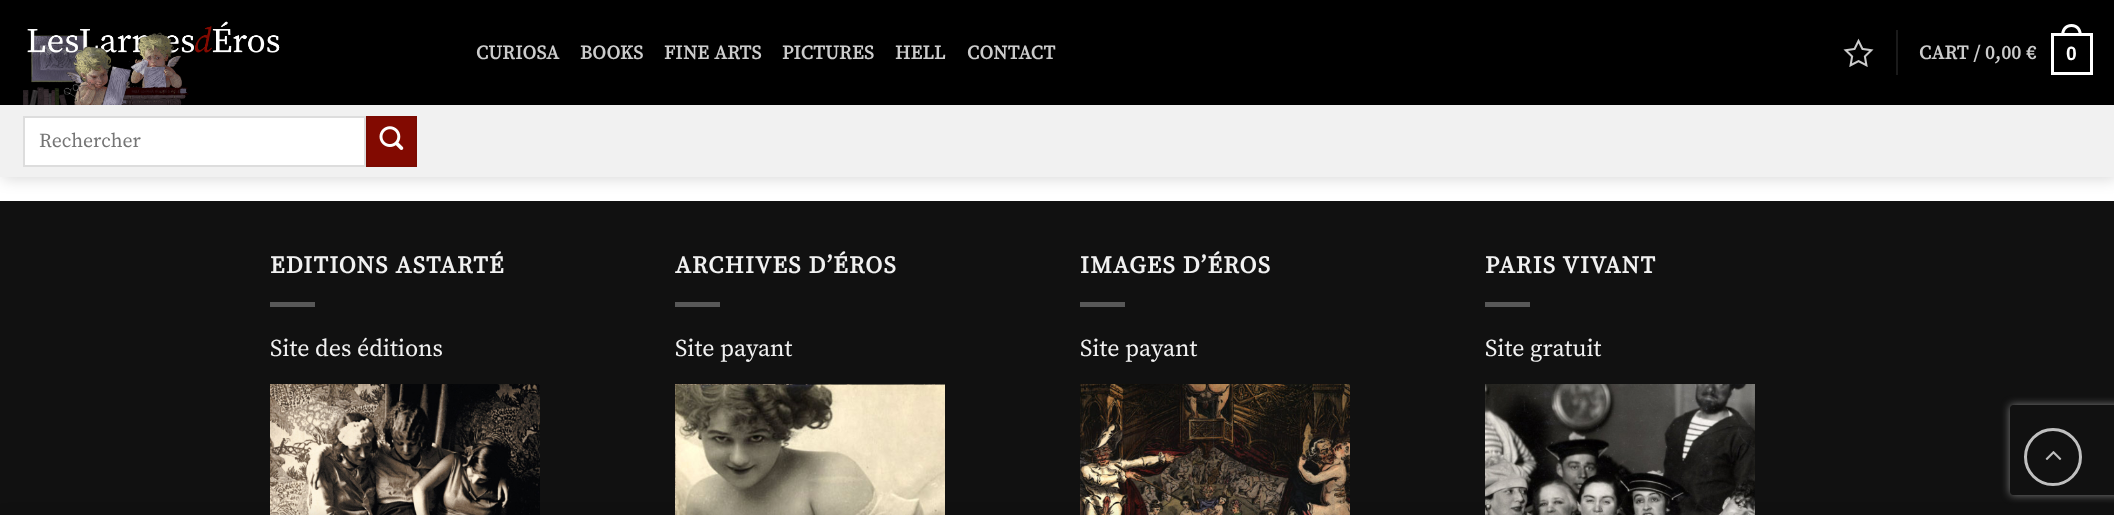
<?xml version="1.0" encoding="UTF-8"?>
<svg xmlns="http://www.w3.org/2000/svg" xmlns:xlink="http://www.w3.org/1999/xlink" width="2114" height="515">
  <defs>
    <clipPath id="clip1"><path d="M 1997 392 h 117 v 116 h -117 z m 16 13 h 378 c 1.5 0 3 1.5 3 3 v 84 c 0 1.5 -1.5 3 -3 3 h -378 c -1.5 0 -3 -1.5 -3 -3 v -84 c 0 -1.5 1.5 -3 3 -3 z" clip-rule="evenodd" /></clipPath>
  </defs>
  <rect width="100%" height="100%" fill="#ffffff" />
  <rect y="201" width="2114" height="314" fill="#111111" />
  <rect x="2" y="2" width="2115" height="177" fill="#000000" fill-opacity="0.15" filter="blur(7.5px)" />
  <rect width="2114" height="105" fill="#000000" />
  <image x="23" y="21" width="257" height="84" xlink:href="image1.png" />
  <image x="1843" y="38" width="31" height="29" xlink:href="image2.png" />
  <rect x="1896" y="30" width="2" height="45" fill="#1a1a1a" />
  <rect x="2052.5" y="34.5" width="39" height="39" fill="none" stroke="#ffffff" stroke-width="3" />
  <path d="M 2071.5 24 c 7 0 10.5 5.5 10.5 12 h -21 c 0 -6.5 3.5 -12 10.5 -12 z m 0 3 c 5.5 0 7.5 4.5 7.5 9 h -15 c 0 -4.5 2 -9 7.5 -9 z" fill="#ffffff" fill-rule="evenodd" />
  <rect y="105" width="2114" height="72" fill="#f1f1f1" />
  <rect x="24" y="117" width="341" height="49" fill="#ffffff" stroke="#dddddd" stroke-width="2" />
  <rect x="367" y="117" width="49" height="49" fill="#820a01" stroke="#7c0a01" stroke-width="2" />
  <image x="379" y="126" width="25" height="24" xlink:href="image3.png" />
  <rect x="270" y="302" width="45" height="5" fill="#585858" />
  <image x="270" y="384" width="270" height="131" xlink:href="image4.png" />
  <rect x="675" y="302" width="45" height="5" fill="#585858" />
  <image x="675" y="384" width="270" height="131" xlink:href="image5.png" />
  <rect x="1080" y="302" width="45" height="5" fill="#585858" />
  <image x="1080" y="384" width="270" height="131" xlink:href="image6.png" />
  <rect x="1485" y="302" width="45" height="5" fill="#585858" />
  <image x="1485" y="384" width="270" height="131" xlink:href="image7.png" />
  <g clip-path="url(#clip1)">
    <rect x="2010" y="405" width="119" height="90" rx="3" fill="#808080" filter="blur(4px)" />
  </g>
  <circle cx="2053" cy="457" r="27.5" fill="none" stroke="#c0c0c0" stroke-width="3" />
  <image x="2045" y="451" width="17" height="9" xlink:href="image8.png" />
  <rect y="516" width="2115" height="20" fill="#000000" fill-opacity="0.14" filter="blur(7px)" />
  <text x="476" y="59" style="font-family: Source Serif Pro; font-size: 19.25px; font-weight: bold; letter-spacing: 0.4px; fill: #cccccc">CURIOSA</text>
  <text x="580" y="59" style="font-family: Source Serif Pro; font-size: 19.25px; font-weight: bold; letter-spacing: 0.4px; fill: #cccccc">BOOKS</text>
  <text x="664" y="59" style="font-family: Source Serif Pro; font-size: 19.25px; font-weight: bold; letter-spacing: 0.4px; fill: #cccccc">FINE ARTS</text>
  <text x="782" y="59" style="font-family: Source Serif Pro; font-size: 19.25px; font-weight: bold; letter-spacing: 0.4px; fill: #cccccc">PICTURES</text>
  <text x="895" y="59" style="font-family: Source Serif Pro; font-size: 19.25px; font-weight: bold; letter-spacing: 0.4px; fill: #cccccc">HELL</text>
  <text x="967" y="59" style="font-family: Source Serif Pro; font-size: 19.25px; font-weight: bold; letter-spacing: 0.4px; fill: #cccccc">CONTACT</text>
  <text x="1919" y="59" style="font-family: Source Serif Pro; font-size: 19.25px; font-weight: bold; letter-spacing: 0.4px; fill: #cccccc">CART / 0,00 €</text>
  <text x="2066" y="60" style="font-family: Liberation Sans; font-size: 19.25px; font-weight: bold; letter-spacing: 0.4px; fill: #ffffff">0</text>
  <text x="39" y="147" style="font-family: Source Serif Pro; font-size: 19.75px; fill: #757575">Rechercher</text>
  <text x="270" y="273" style="font-family: Source Serif Pro; font-size: 24px; font-weight: bold; letter-spacing: 1.25px; fill: #f1f1f1">EDITIONS ASTARTÉ</text>
  <text x="270" y="356" style="font-family: Source Serif Pro; font-size: 24px; fill: #f1f1f1">Site des éditions</text>
  <text x="675" y="273" style="font-family: Source Serif Pro; font-size: 24px; font-weight: bold; letter-spacing: 1.25px; fill: #f1f1f1">ARCHIVES D’ÉROS</text>
  <text x="675" y="356" style="font-family: Source Serif Pro; font-size: 24px; fill: #f1f1f1">Site payant</text>
  <text x="1080" y="273" style="font-family: Source Serif Pro; font-size: 24px; font-weight: bold; letter-spacing: 1.25px; fill: #f1f1f1">IMAGES D’ÉROS</text>
  <text x="1080" y="356" style="font-family: Source Serif Pro; font-size: 24px; fill: #f1f1f1">Site payant</text>
  <text x="1485" y="273" style="font-family: Source Serif Pro; font-size: 24px; font-weight: bold; letter-spacing: 1.25px; fill: #f1f1f1">PARIS VIVANT</text>
  <text x="1485" y="356" style="font-family: Source Serif Pro; font-size: 24px; fill: #f1f1f1">Site gratuit</text>
</svg>
